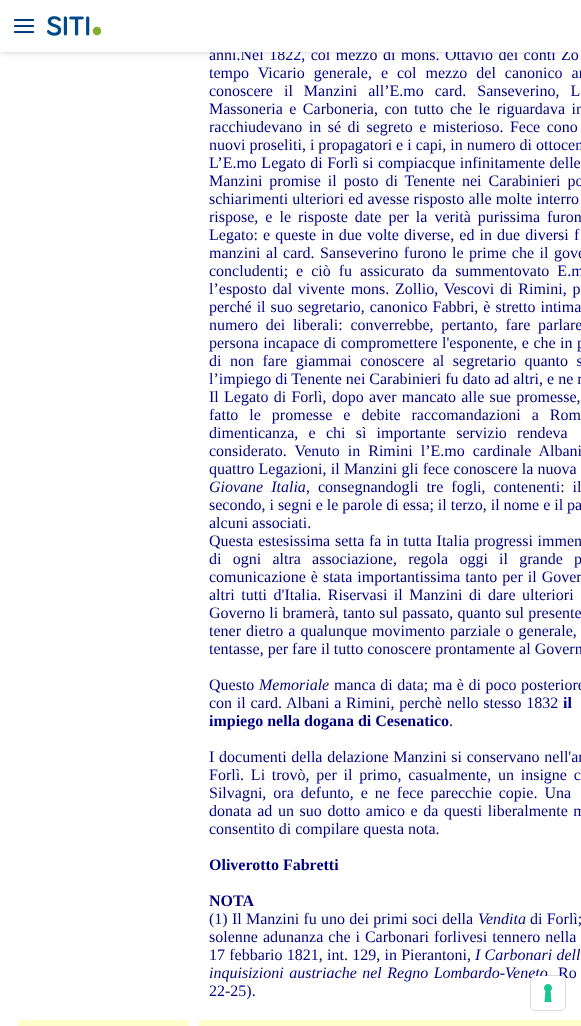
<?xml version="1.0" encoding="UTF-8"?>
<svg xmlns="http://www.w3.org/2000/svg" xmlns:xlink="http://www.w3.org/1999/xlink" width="581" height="1026">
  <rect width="100%" height="100%" fill="#ffffff" />
  <rect width="581" height="52" fill="#000000" fill-opacity="0.2" filter="blur(3px)" />
  <rect x="18" y="1020" width="171" height="6" fill="#ffffcc" />
  <rect x="199" y="1020" width="382" height="6" fill="#ffffcc" />
  <text x="209" y="60" word-spacing="1.5" style="font-family: Liberation Serif; font-size: 16px; fill: #000080">anni.Nel 1822, col mezzo di mons. Ottavio dei conti Zo</text>
  <rect width="581" height="52" fill="#ffffff" />
  <image x="13" y="19" width="22" height="14" xlink:href="image1.png" />
  <image x="47" y="16" width="54" height="20" xlink:href="image2.png" />
  <text x="209" y="78" word-spacing="5" style="font-family: Liberation Serif; font-size: 16px; fill: #000080">tempo Vicario generale, e col mezzo del canonico ar</text>
  <text x="209" y="96" word-spacing="7" style="font-family: Liberation Serif; font-size: 16px; fill: #000080">conoscere il Manzini all’E.mo card. Sanseverino, L</text>
  <text x="209" y="114" word-spacing="2.5" style="font-family: Liberation Serif; font-size: 16px; fill: #000080">Massoneria e Carboneria, con tutto che le riguardava in</text>
  <text x="209" y="132" word-spacing="2.5" style="font-family: Liberation Serif; font-size: 16px; fill: #000080">racchiudevano in sé di segreto e misterioso. Fece cono</text>
  <text x="209" y="150" style="font-family: Liberation Serif; font-size: 16px; fill: #000080">nuovi proseliti, i propagatori e i capi, in numero di ottocen</text>
  <text x="209" y="168" word-spacing="0.5" style="font-family: Liberation Serif; font-size: 16px; fill: #000080">L’E.mo Legato di Forlì si compiacque infinitamente delle</text>
  <text x="209" y="186" word-spacing="3" style="font-family: Liberation Serif; font-size: 16px; fill: #000080">Manzini promise il posto di Tenente nei Carabinieri po</text>
  <text x="209" y="204" word-spacing="0.25" style="font-family: Liberation Serif; font-size: 16px; fill: #000080">schiarimenti ulteriori ed avesse risposto alle molte interro</text>
  <text x="209" y="222" word-spacing="3" style="font-family: Liberation Serif; font-size: 16px; fill: #000080">rispose, e le risposte date per la verità purissima furon</text>
  <text x="209" y="240" word-spacing="1.1" style="font-family: Liberation Serif; font-size: 16px; fill: #000080">Legato: e queste in due volte diverse, ed in due diversi f</text>
  <text x="209" y="258" word-spacing="1.5" style="font-family: Liberation Serif; font-size: 16px; fill: #000080">manzini al card. Sanseverino furono le prime che il gove</text>
  <text x="209" y="276" word-spacing="4" style="font-family: Liberation Serif; font-size: 16px; fill: #000080">concludenti; e ciò fu assicurato da summentovato E.m</text>
  <text x="209" y="294" word-spacing="1.75" style="font-family: Liberation Serif; font-size: 16px; fill: #000080">l’esposto dal vivente mons. Zollio, Vescovi di Rimini, p</text>
  <text x="209" y="312" word-spacing="1" style="font-family: Liberation Serif; font-size: 16px; fill: #000080">perché il suo segretario, canonico Fabbri, è stretto intima</text>
  <text x="209" y="330" word-spacing="3.75" style="font-family: Liberation Serif; font-size: 16px; fill: #000080">numero dei liberali: converrebbe, pertanto, fare parlare</text>
  <text x="209" y="348" word-spacing="0.5" style="font-family: Liberation Serif; font-size: 16px; fill: #000080">persona incapace di compromettere l'esponente, e che in p</text>
  <text x="209" y="366" word-spacing="4.5" style="font-family: Liberation Serif; font-size: 16px; fill: #000080">di non fare giammai conoscere al segretario quanto s</text>
  <text x="209" y="384" style="font-family: Liberation Serif; font-size: 16px; fill: #000080">l’impiego di Tenente nei Carabinieri fu dato ad altri, e ne r</text>
  <text x="209" y="402" word-spacing="1.25" style="font-family: Liberation Serif; font-size: 16px; fill: #000080">Il Legato di Forlì, dopo aver mancato alle sue promesse,</text>
  <text x="209" y="420" word-spacing="7" style="font-family: Liberation Serif; font-size: 16px; fill: #000080">fatto le promesse e debite raccomandazioni a Rom</text>
  <text x="209" y="438" word-spacing="6.25" style="font-family: Liberation Serif; font-size: 16px; fill: #000080">dimenticanza, e chi sì importante servizio rendeva</text>
  <text x="209" y="456" word-spacing="4" style="font-family: Liberation Serif; font-size: 16px; fill: #000080">considerato. Venuto in Rimini l’E.mo cardinale Albani</text>
  <text x="209" y="474" word-spacing="0.25" style="font-family: Liberation Serif; font-size: 16px; fill: #000080">quattro Legazioni, il Manzini gli fece conoscere la nuova</text>
  <text x="209" y="492" word-spacing="4" style="font-family: Liberation Serif; font-size: 16px; font-style: italic; fill: #000080">Giovane Italia</text>
  <text x="306" y="492" word-spacing="4" style="font-family: Liberation Serif; font-size: 16px; fill: #000080">, consegnandogli tre fogli, contenenti: il</text>
  <text x="209" y="510" style="font-family: Liberation Serif; font-size: 16px; fill: #000080">secondo, i segni e le parole di essa; il terzo, il nome e il pa</text>
  <text x="209" y="528" style="font-family: Liberation Serif; font-size: 16px; fill: #000080">alcuni associati.</text>
  <text x="209" y="546" word-spacing="0.75" style="font-family: Liberation Serif; font-size: 16px; fill: #000080">Questa estesissima setta fa in tutta Italia progressi immen</text>
  <text x="209" y="564" word-spacing="7.25" style="font-family: Liberation Serif; font-size: 16px; fill: #000080">di ogni altra associazione, regola oggi il grande p</text>
  <text x="209" y="582" word-spacing="1" style="font-family: Liberation Serif; font-size: 16px; fill: #000080">comunicazione è stata importantissima tanto per il Gover</text>
  <text x="209" y="600" word-spacing="2.5" style="font-family: Liberation Serif; font-size: 16px; fill: #000080">altri tutti d'Italia. Riservasi il Manzini di dare ulteriori</text>
  <text x="209" y="618" word-spacing="0.25" style="font-family: Liberation Serif; font-size: 16px; fill: #000080">Governo li bramerà, tanto sul passato, quanto sul presente</text>
  <text x="209" y="636" word-spacing="1" style="font-family: Liberation Serif; font-size: 16px; fill: #000080">tener dietro a qualunque movimento parziale o generale,</text>
  <text x="209" y="654" style="font-family: Liberation Serif; font-size: 16px; fill: #000080">tentasse, per fare il tutto conoscere prontamente al Govern</text>
  <text x="209" y="690" style="font-family: Liberation Serif; font-size: 16px; fill: #000080">Questo</text>
  <text x="259" y="690" style="font-family: Liberation Serif; font-size: 16px; font-style: italic; fill: #000080">Memoriale</text>
  <text x="334" y="690" word-spacing="0.5" style="font-family: Liberation Serif; font-size: 16px; fill: #000080">manca di data; ma è di poco posteriore</text>
  <text x="209" y="708" word-spacing="0.75" style="font-family: Liberation Serif; font-size: 16px; fill: #000080">con il card. Albani a Rimini, perchè nello stesso 1832</text>
  <text x="563" y="708" word-spacing="0.75" style="font-family: Liberation Serif; font-size: 16px; font-weight: bold; fill: #000080">il</text>
  <text x="209" y="726" style="font-family: Liberation Serif; font-size: 16px; font-weight: bold; fill: #000080">impiego nella dogana di Cesenatico</text>
  <text x="449" y="726" style="font-family: Liberation Serif; font-size: 16px; fill: #000080">.</text>
  <text x="209" y="762" word-spacing="0.75" style="font-family: Liberation Serif; font-size: 16px; fill: #000080">I documenti della delazione Manzini si conservano nell'ar</text>
  <text x="209" y="780" word-spacing="2.75" style="font-family: Liberation Serif; font-size: 16px; fill: #000080">Forlì. Li trovò, per il primo, casualmente, un insigne c</text>
  <text x="209" y="798" word-spacing="3" style="font-family: Liberation Serif; font-size: 16px; fill: #000080">Silvagni, ora defunto, e ne fece parecchie copie. Una</text>
  <text x="209" y="816" word-spacing="1.6" style="font-family: Liberation Serif; font-size: 16px; fill: #000080">donata ad un suo dotto amico e da questi liberalmente m</text>
  <text x="209" y="834" style="font-family: Liberation Serif; font-size: 16px; fill: #000080">consentito di compilare questa nota.</text>
  <text x="209" y="870" style="font-family: Liberation Serif; font-size: 16px; font-weight: bold; fill: #000080">Oliverotto Fabretti</text>
  <text x="209" y="906" style="font-family: Liberation Serif; font-size: 16px; font-weight: bold; fill: #000080">NOTA</text>
  <text x="209" y="924" word-spacing="0.25" style="font-family: Liberation Serif; font-size: 16px; fill: #000080">(1) Il Manzini fu uno dei primi soci della</text>
  <text x="478" y="924" style="font-family: Liberation Serif; font-size: 16px; font-style: italic; fill: #000080">Vendita</text>
  <text x="530" y="924" word-spacing="0.25" style="font-family: Liberation Serif; font-size: 16px; fill: #000080">di Forlì;</text>
  <text x="209" y="942" word-spacing="1" style="font-family: Liberation Serif; font-size: 16px; fill: #000080">solenne adunanza che i Carbonari forlivesi tennero nella</text>
  <text x="209" y="960" word-spacing="0.25" style="font-family: Liberation Serif; font-size: 16px; fill: #000080">17 febbario 1821, int. 129, in Pierantoni,</text>
  <text x="475" y="960" word-spacing="0.25" style="font-family: Liberation Serif; font-size: 16px; font-style: italic; fill: #000080">I Carbonari dell</text>
  <text x="209" y="978" word-spacing="1.5" style="font-family: Liberation Serif; font-size: 16px; font-style: italic; fill: #000080">inquisizioni austriache nel Regno Lombardo-Veneto</text>
  <text x="558" y="978" word-spacing="1.5" style="font-family: Liberation Serif; font-size: 16px; fill: #000080">Ro</text>
  <text x="209" y="996" style="font-family: Liberation Serif; font-size: 16px; fill: #000080">22-25).</text>
  <rect x="530.5" y="975.5" width="35" height="35" rx="4.5" fill="none" stroke="#000000" stroke-opacity="0.15" />
  <rect x="531" y="976" width="34" height="34" rx="4" fill="#ffffff" />
  <image x="544" y="984" width="8" height="18" xlink:href="image3.png" />
</svg>
